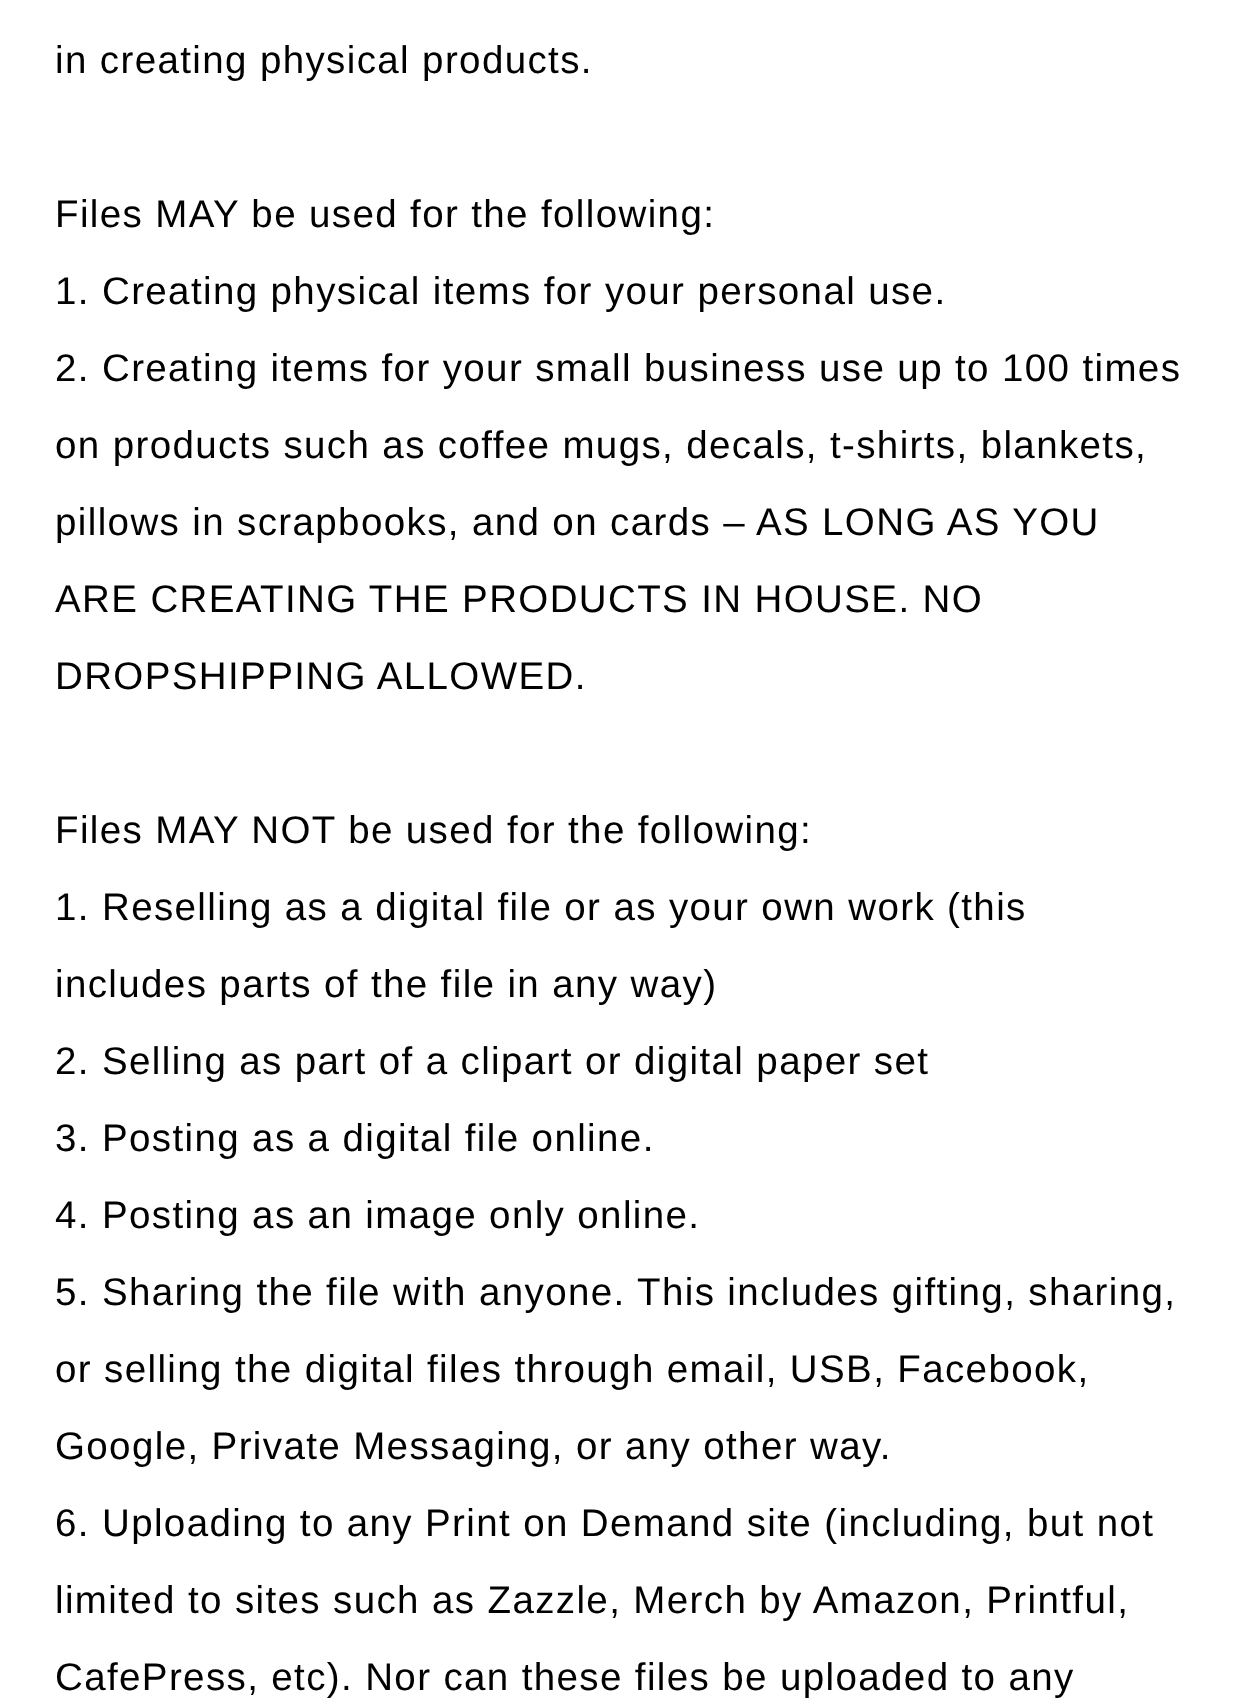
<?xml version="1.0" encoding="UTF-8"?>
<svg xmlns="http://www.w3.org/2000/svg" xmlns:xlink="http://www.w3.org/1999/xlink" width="1240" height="1707">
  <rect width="100%" height="100%" fill="#ffffff" />
  <text x="55" y="73" style="font-family: Arimo; font-size: 38.5px; letter-spacing: 1.38px; fill: #000000">in creating physical products.</text>
  <text x="55" y="227" style="font-family: Arimo; font-size: 38.5px; letter-spacing: 1.38px; fill: #000000">Files MAY be used for the following:</text>
  <text x="55" y="304" style="font-family: Arimo; font-size: 38.5px; letter-spacing: 1.38px; fill: #000000">1. Creating physical items for your personal use.</text>
  <text x="55" y="381" style="font-family: Arimo; font-size: 38.5px; letter-spacing: 1.38px; fill: #000000">2. Creating items for your small business use up to 100 times</text>
  <text x="55" y="458" style="font-family: Arimo; font-size: 38.5px; letter-spacing: 1.38px; fill: #000000">on products such as coffee mugs, decals, t-shirts, blankets,</text>
  <text x="55" y="535" style="font-family: Arimo; font-size: 38.5px; letter-spacing: 1.38px; fill: #000000">pillows in scrapbooks, and on cards – AS LONG AS YOU</text>
  <text x="55" y="612" style="font-family: Arimo; font-size: 38.5px; letter-spacing: 1.38px; fill: #000000">ARE CREATING THE PRODUCTS IN HOUSE. NO</text>
  <text x="55" y="689" style="font-family: Arimo; font-size: 38.5px; letter-spacing: 1.38px; fill: #000000">DROPSHIPPING ALLOWED.</text>
  <text x="55" y="843" style="font-family: Arimo; font-size: 38.5px; letter-spacing: 1.38px; fill: #000000">Files MAY NOT be used for the following:</text>
  <text x="55" y="920" style="font-family: Arimo; font-size: 38.5px; letter-spacing: 1.38px; fill: #000000">1. Reselling as a digital file or as your own work (this</text>
  <text x="55" y="997" style="font-family: Arimo; font-size: 38.5px; letter-spacing: 1.38px; fill: #000000">includes parts of the file in any way)</text>
  <text x="55" y="1074" style="font-family: Arimo; font-size: 38.5px; letter-spacing: 1.38px; fill: #000000">2. Selling as part of a clipart or digital paper set</text>
  <text x="55" y="1151" style="font-family: Arimo; font-size: 38.5px; letter-spacing: 1.38px; fill: #000000">3. Posting as a digital file online.</text>
  <text x="55" y="1228" style="font-family: Arimo; font-size: 38.5px; letter-spacing: 1.38px; fill: #000000">4. Posting as an image only online.</text>
  <text x="55" y="1305" style="font-family: Arimo; font-size: 38.5px; letter-spacing: 1.38px; fill: #000000">5. Sharing the file with anyone. This includes gifting, sharing,</text>
  <text x="55" y="1382" style="font-family: Arimo; font-size: 38.5px; letter-spacing: 1.38px; fill: #000000">or selling the digital files through email, USB, Facebook,</text>
  <text x="55" y="1459" style="font-family: Arimo; font-size: 38.5px; letter-spacing: 1.38px; fill: #000000">Google, Private Messaging, or any other way.</text>
  <text x="55" y="1536" style="font-family: Arimo; font-size: 38.5px; letter-spacing: 1.38px; fill: #000000">6. Uploading to any Print on Demand site (including, but not</text>
  <text x="55" y="1613" style="font-family: Arimo; font-size: 38.5px; letter-spacing: 1.38px; fill: #000000">limited to sites such as Zazzle, Merch by Amazon, Printful,</text>
  <text x="55" y="1690" style="font-family: Arimo; font-size: 38.5px; letter-spacing: 1.38px; fill: #000000">CafePress, etc). Nor can these files be uploaded to any</text>
</svg>
